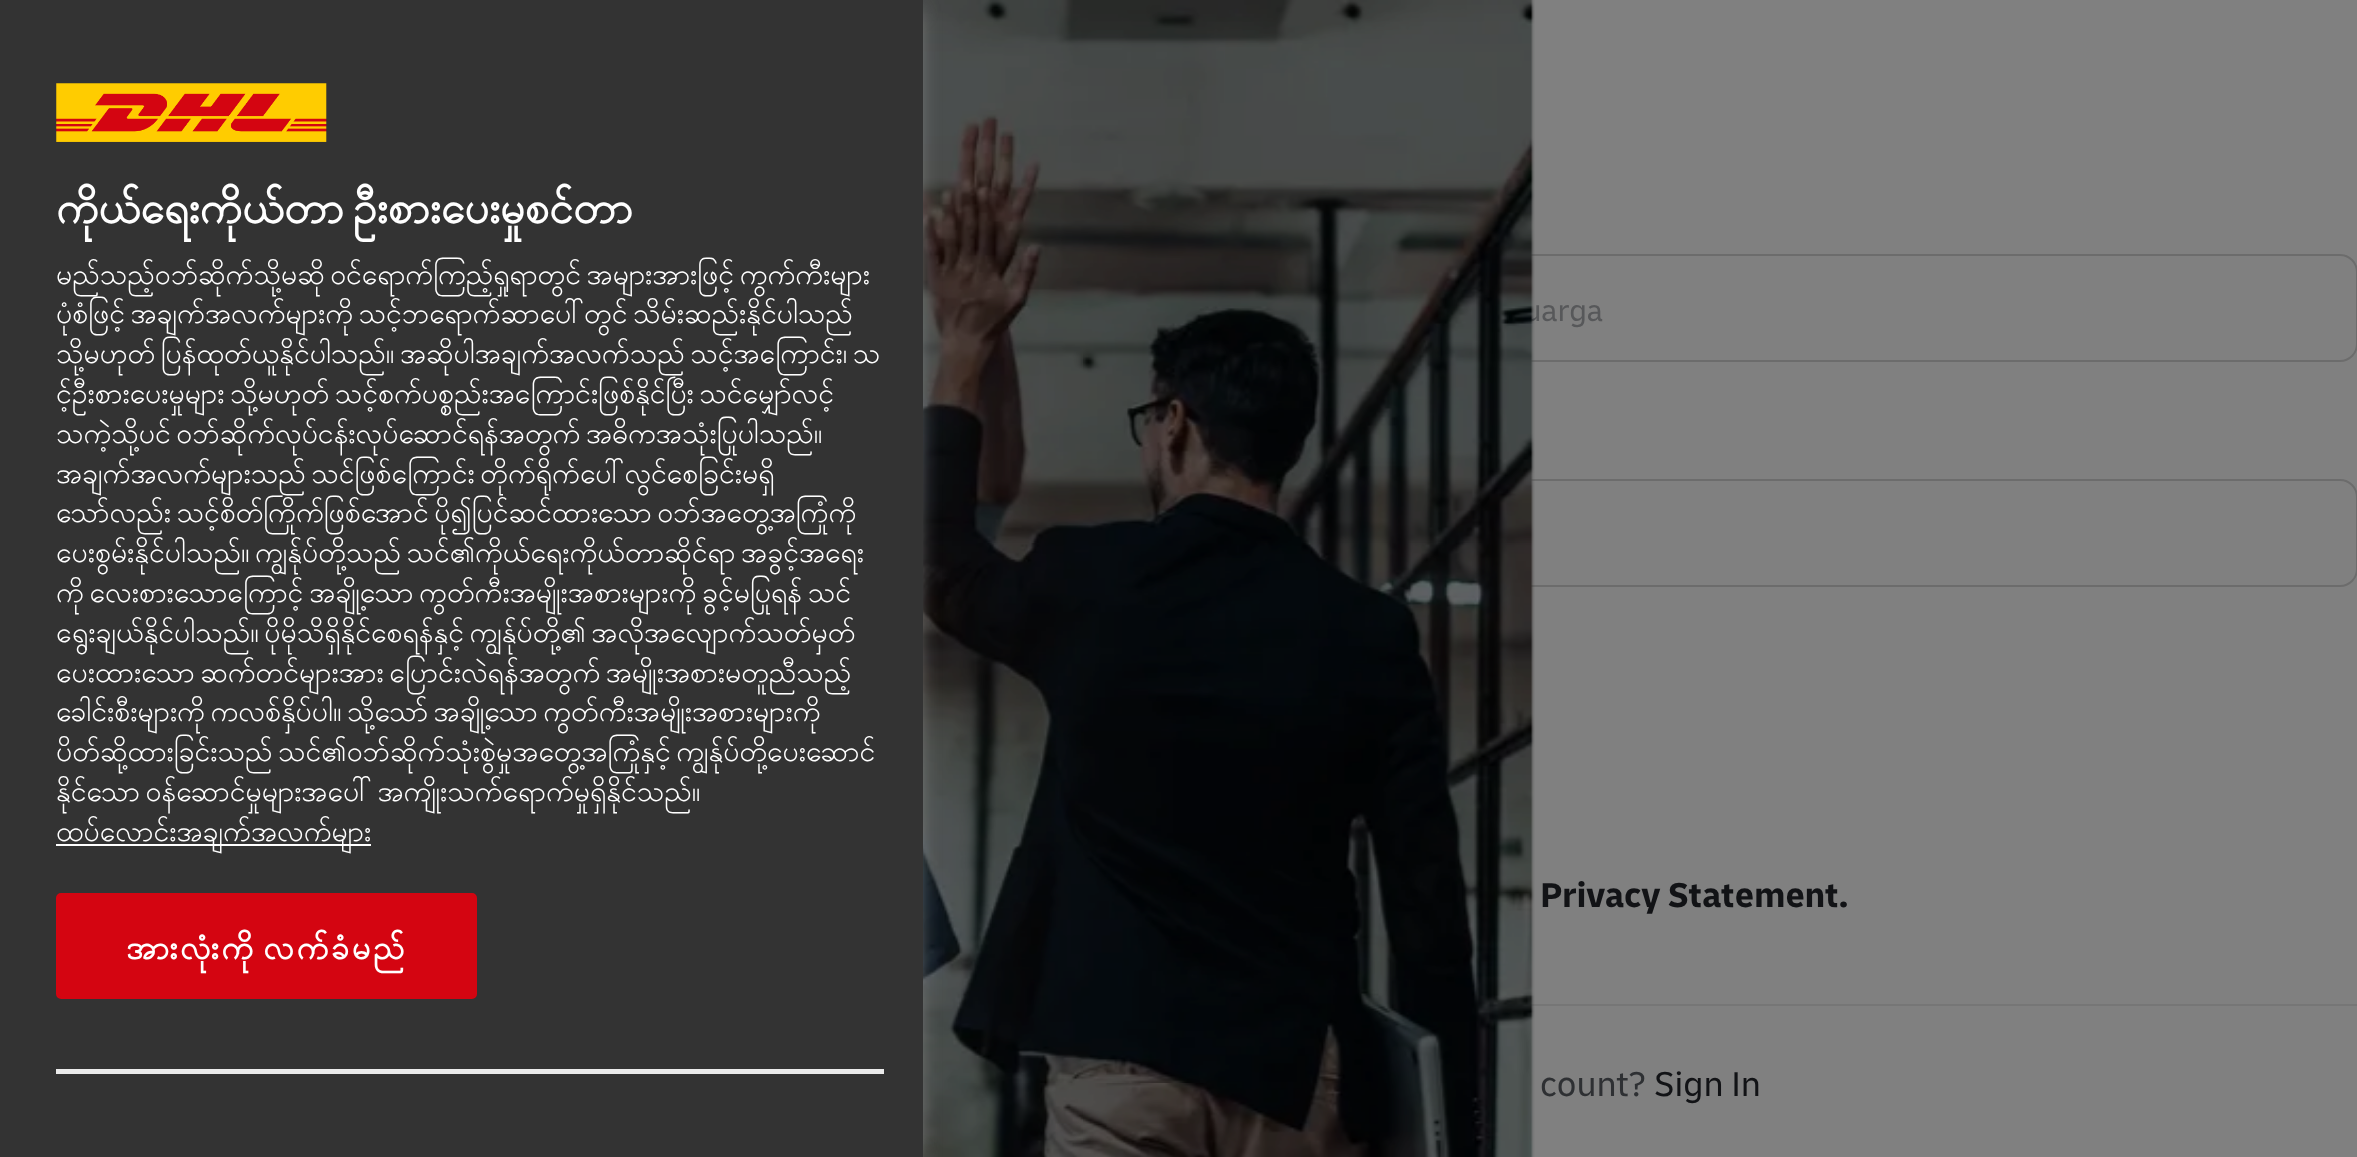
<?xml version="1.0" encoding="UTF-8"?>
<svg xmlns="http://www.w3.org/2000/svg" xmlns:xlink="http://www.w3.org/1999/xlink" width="2357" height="1157">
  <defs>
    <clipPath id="clip1"><rect x="56" y="68" width="851" height="1046" /></clipPath>
  </defs>
  <rect width="100%" height="100%" fill="#808080" />
  <rect x="1216" y="255" width="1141" height="106" rx="17" fill="none" stroke="#6c6c6c" stroke-width="2" />
  <rect x="1" y="480" width="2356" height="106" rx="17" fill="none" stroke="#6c6c6c" stroke-width="2" />
  <rect x="1531" y="1004" width="826" height="2" fill="#767676" />
  <text x="1524" y="321" style="font-family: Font; font-size: 31.5px; fill: #57585a">uarga</text>
  <image x="923" y="0" width="612" height="1157" xlink:href="image2.png" />
  <rect x="7" y="11" width="909" height="1146" fill="#999999" filter="blur(11px)" />
  <rect width="923" height="1157" fill="#333333" />
  <rect x="57" y="894" width="419" height="104" rx="4" fill="#d40511" stroke="#d40511" stroke-width="2" />
  <text x="126" y="959" word-spacing="-7" style="font-family: Padauk; font-size: 32.5px; font-weight: bold; letter-spacing: 2.6px; fill: #ffffff">အားလုံးကို လက်ခံမည်</text>
  <rect x="56" y="844" width="315" height="2" fill="#ffffff" />
  <text x="56" y="841" style="font-family: Padauk; font-size: 28.45px; fill: #ffffff">ထပ်လောင်းအချက်အလက်များ</text>
  <g clip-path="url(#clip1)">
    <text x="56" y="801" word-spacing="-5" style="font-family: Padauk; font-size: 28.45px; fill: #ffffff">နိုင်သော ဝန်ဆောင်မှုများအပေါ် အကျိုးသက်ရောက်မှုရှိနိုင်သည်။</text>
    <text x="56" y="761" word-spacing="-5" style="font-family: Padauk; font-size: 28.45px; fill: #ffffff">ပိတ်ဆို့ထားခြင်းသည် သင်၏ဝဘ်ဆိုက်သုံးစွဲမှုအတွေ့အကြုံနှင့် ကျွန်ုပ်တို့ပေးဆောင်</text>
    <text x="56" y="721" word-spacing="-5" style="font-family: Padauk; font-size: 28.45px; fill: #ffffff">ခေါင်းစီးများကို ကလစ်နှိပ်ပါ။ သို့သော် အချို့သော ကွတ်ကီးအမျိုးအစားများကို</text>
  </g>
  <text x="56" y="682" word-spacing="-5" style="font-family: Padauk; font-size: 28.45px; fill: #ffffff">ပေးထားသော ဆက်တင်များအား ပြောင်းလဲရန်အတွက် အမျိုးအစားမတူညီသည့်</text>
  <g clip-path="url(#clip1)">
    <text x="56" y="642" word-spacing="-5" style="font-family: Padauk; font-size: 28.45px; fill: #ffffff">ရွေးချယ်နိုင်ပါသည်။ ပိုမိုသိရှိနိုင်စေရန်နှင့် ကျွန်ုပ်တို့၏ အလိုအလျောက်သတ်မှတ်</text>
    <text x="56" y="602" word-spacing="-4.75" style="font-family: Padauk; font-size: 28.45px; fill: #ffffff">ကို လေးစားသောကြောင့် အချို့သော ကွတ်ကီးအမျိုးအစားများကို ခွင့်မပြုရန် သင်</text>
  </g>
  <text x="56" y="562" word-spacing="-5" style="font-family: Padauk; font-size: 28.45px; fill: #ffffff">ပေးစွမ်းနိုင်ပါသည်။ ကျွန်ုပ်တို့သည် သင်၏ကိုယ်ရေးကိုယ်တာဆိုင်ရာ အခွင့်အရေး</text>
  <g clip-path="url(#clip1)">
    <text x="56" y="522" word-spacing="-5" style="font-family: Padauk; font-size: 28.45px; fill: #ffffff">သော်လည်း သင့်စိတ်ကြိုက်ဖြစ်အောင် ပို၍ပြင်ဆင်ထားသော ဝဘ်အတွေ့အကြုံကို</text>
  </g>
  <text x="56" y="483" word-spacing="-5" style="font-family: Padauk; font-size: 28.45px; fill: #ffffff">အချက်အလက်များသည် သင်ဖြစ်ကြောင်း တိုက်ရိုက်ပေါ်လွင်စေခြင်းမရှိ</text>
  <text x="56" y="443" word-spacing="-5" style="font-family: Padauk; font-size: 28.45px; fill: #ffffff">သကဲ့သို့ပင် ဝဘ်ဆိုက်လုပ်ငန်းလုပ်ဆောင်ရန်အတွက် အဓိကအသုံးပြုပါသည်။</text>
  <g clip-path="url(#clip1)">
    <text x="56" y="403" word-spacing="-5" style="font-family: Padauk; font-size: 28.45px; fill: #ffffff">င့်ဦးစားပေးမှုများ သို့မဟုတ် သင့်စက်ပစ္စည်းအကြောင်းဖြစ်နိုင်ပြီး သင်မျှော်လင့်</text>
    <text x="56" y="363" word-spacing="-5" style="font-family: Padauk; font-size: 28.45px; fill: #ffffff">သို့မဟုတ် ပြန်ထုတ်ယူနိုင်ပါသည်။ အဆိုပါအချက်အလက်သည် သင့်အကြောင်း၊ သ</text>
    <text x="56" y="323" word-spacing="-5" style="font-family: Padauk; font-size: 28.45px; fill: #ffffff">ပုံစံဖြင့် အချက်အလက်များကို သင့်ဘရောက်ဆာပေါ်တွင် သိမ်းဆည်းနိုင်ပါသည်</text>
  </g>
  <text x="56" y="284" word-spacing="-5" style="font-family: Padauk; font-size: 28.45px; fill: #ffffff">မည်သည့်ဝဘ်ဆိုက်သို့မဆို ဝင်ရောက်ကြည့်ရှုရာတွင် အများအားဖြင့် ကွက်ကီးများ</text>
  <g clip-path="url(#clip1)">
    <text x="56" y="223" word-spacing="-7" style="font-family: Padauk; font-size: 43.25px; font-weight: bold; fill: #ffffff">ကိုယ်ရေးကိုယ်တာ ဦးစားပေးမှုစင်တာ</text>
  </g>
  <rect x="56" y="1069" width="828" height="5" fill="#ebebeb" />
  <image x="56" y="83" width="271" height="59" xlink:href="image1.png" />
  <text x="1540" y="907" style="font-family: Font; font-size: 36px; font-weight: bold; fill: #121316">Privacy Statement.</text>
  <text x="1540" y="1096" style="font-family: Font; font-size: 36px; fill: #2e3033">count?</text>
  <text x="1654" y="1096" style="font-family: Font; font-size: 36px; fill: #121316">Sign In</text>
</svg>
